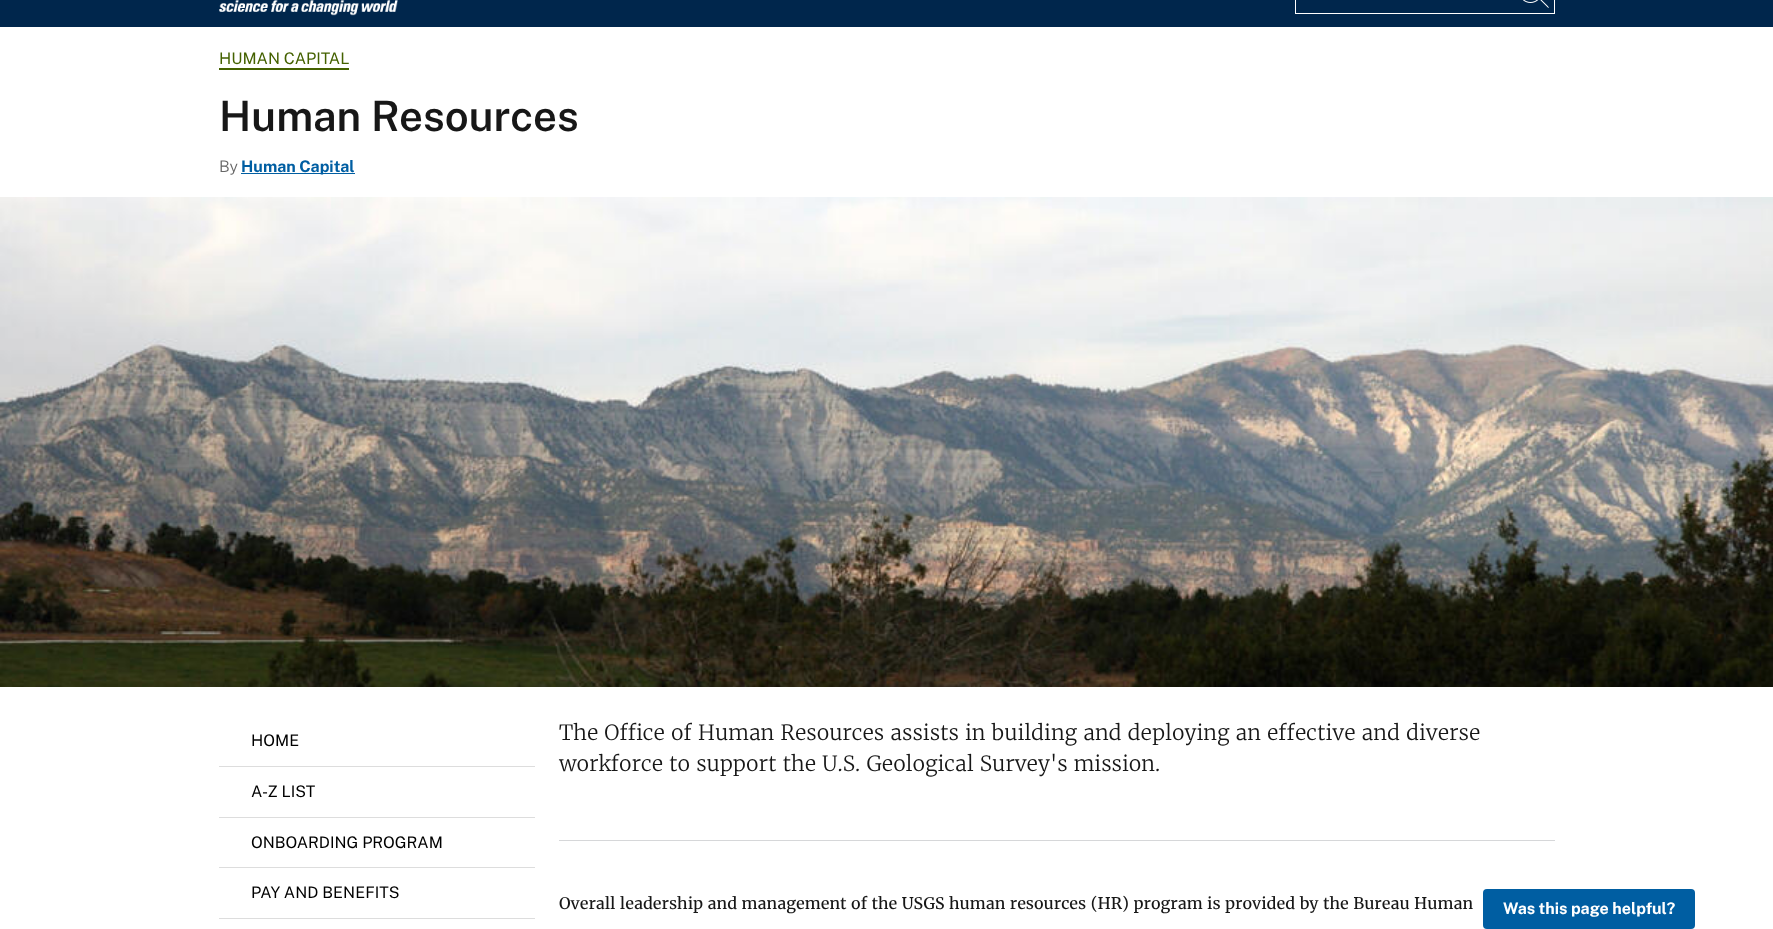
<?xml version="1.0" encoding="UTF-8"?>
<svg xmlns="http://www.w3.org/2000/svg" xmlns:xlink="http://www.w3.org/1999/xlink" width="1773" height="929">
  <rect width="100%" height="100%" fill="#ffffff" />
  <rect width="1773" height="27" fill="#00264c" />
  <image x="219" y="0" width="179" height="16" xlink:href="image1.png" />
  <rect x="1295.5" y="-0.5" width="259" height="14" fill="none" stroke="#ffffff" />
  <image x="1523" y="0" width="26" height="8" xlink:href="image2.png" />
  <rect x="219" y="68" width="130" height="2" fill="#446100" />
  <rect x="241" y="173" width="114" height="1" fill="#005ea2" />
  <image x="0" y="197" width="1773" height="490" xlink:href="image3.png" />
  <rect x="219" y="766" width="316" height="1" fill="#dddddd" />
  <rect x="219" y="817" width="316" height="1" fill="#dddddd" />
  <rect x="219" y="867" width="316" height="1" fill="#dddddd" />
  <rect x="219" y="918" width="316" height="1" fill="#dddddd" />
  <rect x="559" y="840" width="996" height="1" fill="#d6d7d9" />
  <rect x="1483" y="889" width="212" height="40" rx="4" fill="#005ea2" />
  <text x="219" y="64" style="font-family: Public Sans; font-size: 16px; fill: #446100">HUMAN CAPITAL</text>
  <text x="219" y="131" style="font-family: Public Sans; font-size: 42px; font-weight: 600; fill: #171717">Human Resources</text>
  <text x="219" y="172" style="font-family: Public Sans; font-size: 16px; font-weight: 300; fill: #666666">By</text>
  <text x="241" y="172" style="font-family: Public Sans; font-size: 16px; font-weight: bold; fill: #005ea2">Human Capital</text>
  <text x="251" y="746" style="font-family: Public Sans; font-size: 16px; fill: #000000">HOME</text>
  <text x="251" y="797" style="font-family: Public Sans; font-size: 16px; fill: #000000">A-Z LIST</text>
  <text x="251" y="848" style="font-family: Public Sans; font-size: 16px; fill: #000000">ONBOARDING PROGRAM</text>
  <text x="251" y="898" style="font-family: Public Sans; font-size: 16px; fill: #000000">PAY AND BENEFITS</text>
  <text x="559" y="740" style="font-family: Merriweather; font-size: 21px; font-weight: 300; fill: #171717">The Office of Human Resources assists in building and deploying an effective and diverse</text>
  <text x="559" y="771" style="font-family: Merriweather; font-size: 21px; font-weight: 300; fill: #171717">workforce to support the U.S. Geological Survey's mission.</text>
  <text x="559" y="909" style="font-family: Merriweather; font-size: 16px; fill: #171717">Overall leadership and management of the USGS human resources (HR) program is provided by the Bureau Human</text>
  <text x="1503" y="914" style="font-family: Public Sans; font-size: 16px; font-weight: bold; fill: #ffffff">Was this page helpful?</text>
</svg>
